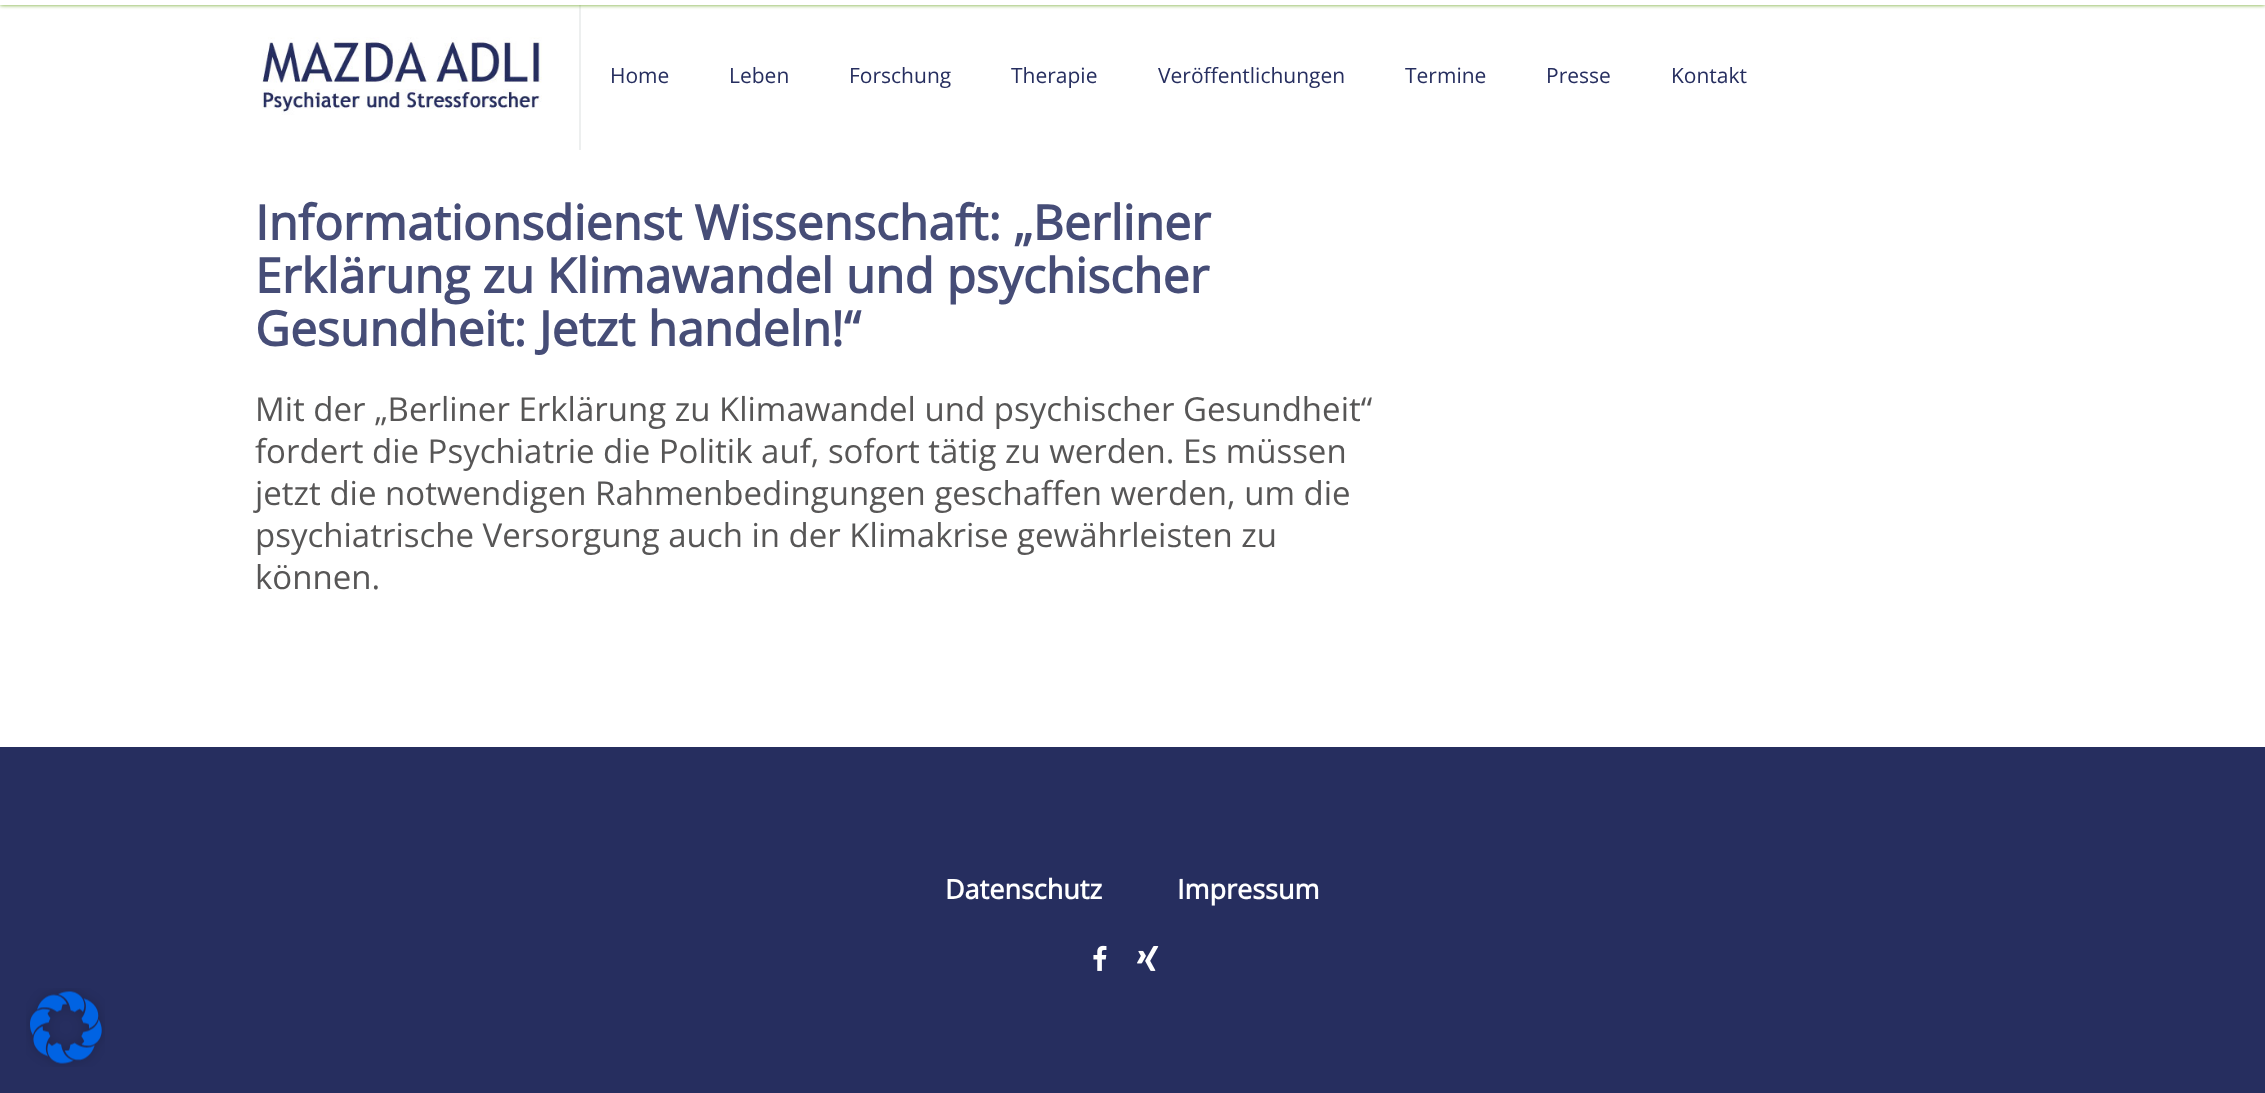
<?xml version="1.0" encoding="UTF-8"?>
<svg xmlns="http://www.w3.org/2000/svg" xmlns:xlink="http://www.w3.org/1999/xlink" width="2265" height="1093">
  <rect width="100%" height="100%" fill="#262e5f" />
  <rect y="5" width="2265" height="742" fill="#ffffff" />
  <rect x="579" width="2" height="150" fill="#edefef" />
  <rect width="2265" height="5" fill="#65a11b" filter="blur(2px)" />
  <rect width="2265" height="5" fill="#ffffff" />
  <image x="261" y="37" width="281" height="78" xlink:href="image1.png" />
  <image x="1093" y="945" width="14" height="26" xlink:href="image2.png" />
  <image x="1137" y="946" width="22" height="25" xlink:href="image3.png" />
  <image x="26" y="988" width="79" height="79" xlink:href="image4.png" />
  <text x="610" y="83" style="font-family: Open Sans; font-size: 21px; fill: #262e5f">Home</text>
  <text x="729" y="83" style="font-family: Open Sans; font-size: 21px; fill: #262e5f">Leben</text>
  <text x="849" y="83" style="font-family: Open Sans; font-size: 21px; fill: #262e5f">Forschung</text>
  <text x="1011" y="83" style="font-family: Open Sans; font-size: 21px; fill: #262e5f">Therapie</text>
  <text x="1158" y="83" style="font-family: Open Sans; font-size: 21px; fill: #262e5f">Veröffentlichungen</text>
  <text x="1405" y="83" style="font-family: Open Sans; font-size: 21px; fill: #262e5f">Termine</text>
  <text x="1546" y="83" style="font-family: Open Sans; font-size: 21px; fill: #262e5f">Presse</text>
  <text x="1671" y="83" style="font-family: Open Sans; font-size: 21px; fill: #262e5f">Kontakt</text>
  <text x="255" y="240" style="font-family: Open Sans; font-size: 48px; font-weight: bold; fill: #464d77">Informationsdienst Wissenschaft: „Berliner</text>
  <text x="255" y="293" style="font-family: Open Sans; font-size: 48px; font-weight: bold; fill: #464d77">Erklärung zu Klimawandel und psychischer</text>
  <text x="255" y="346" style="font-family: Open Sans; font-size: 48px; font-weight: bold; fill: #464d77">Gesundheit: Jetzt handeln!“</text>
  <text x="255" y="421" style="font-family: Open Sans; font-size: 33px; fill: #575656">Mit der „Berliner Erklärung zu Klimawandel und psychischer Gesundheit“</text>
  <text x="255" y="463" style="font-family: Open Sans; font-size: 33px; fill: #575656">fordert die Psychiatrie die Politik auf, sofort tätig zu werden. Es müssen</text>
  <text x="255" y="505" style="font-family: Open Sans; font-size: 33px; fill: #575656">jetzt die notwendigen Rahmenbedingungen geschaffen werden, um die</text>
  <text x="255" y="547" style="font-family: Open Sans; font-size: 33px; fill: #575656">psychiatrische Versorgung auch in der Klimakrise gewährleisten zu</text>
  <text x="255" y="589" style="font-family: Open Sans; font-size: 33px; fill: #575656">können.</text>
  <text x="945" y="899" style="font-family: Open Sans; font-size: 27px; font-weight: bold; fill: #ffffff">Datenschutz</text>
  <text x="1177" y="899" style="font-family: Open Sans; font-size: 27px; font-weight: bold; fill: #ffffff">Impressum</text>
</svg>
